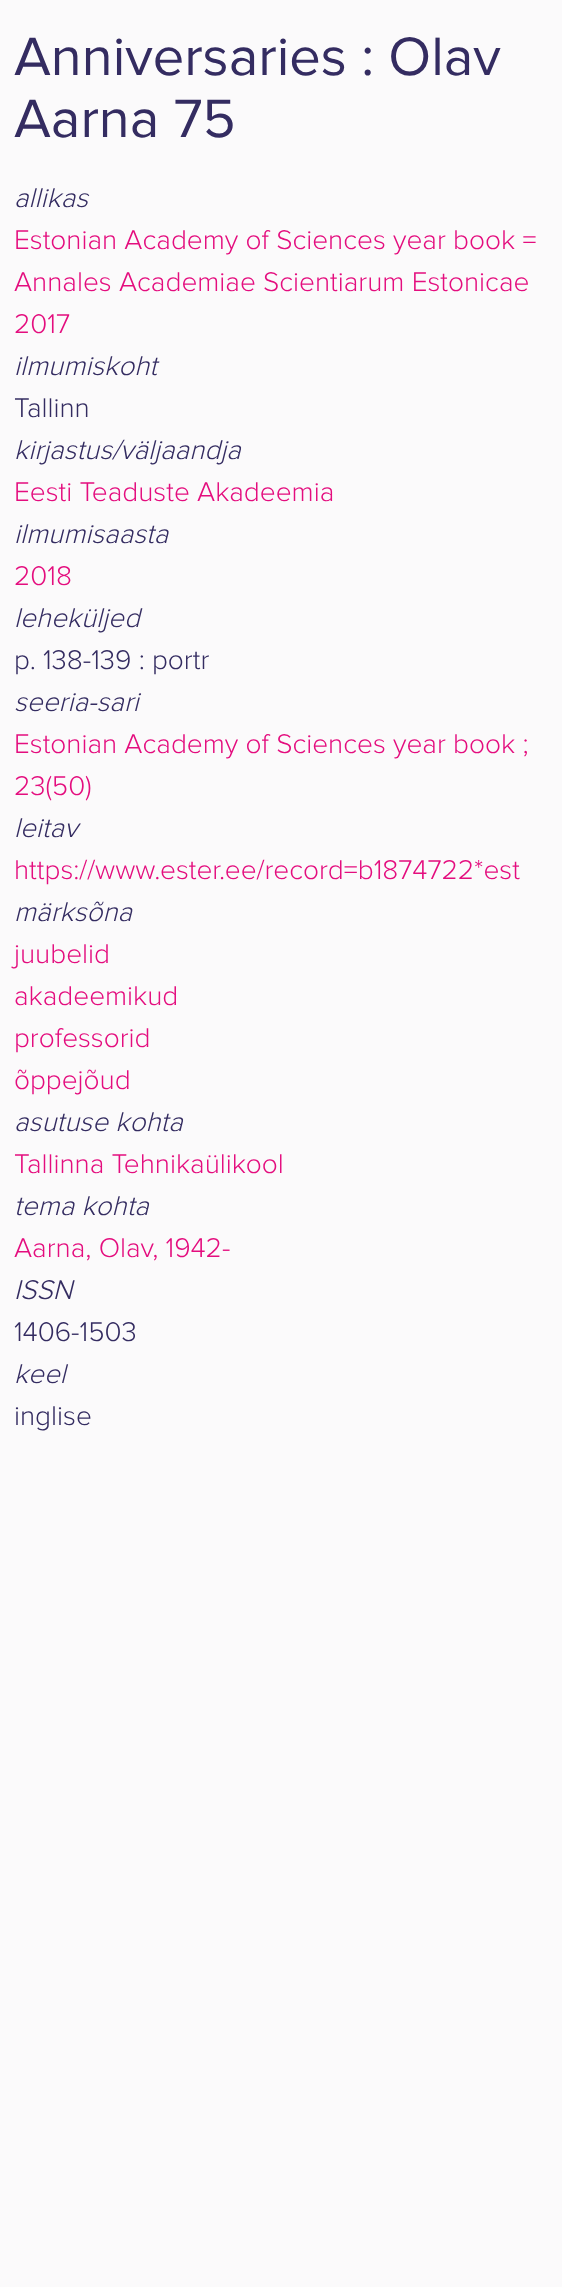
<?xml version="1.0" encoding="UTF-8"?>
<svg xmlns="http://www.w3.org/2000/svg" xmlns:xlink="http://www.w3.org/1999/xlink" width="562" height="2287">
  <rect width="100%" height="100%" fill="#fbfafb" />
  <text x="14" y="75" style="font-family: Proxima Nova; font-size: 56px; fill: #342c61">Anniversaries : Olav</text>
  <text x="14" y="137" style="font-family: Proxima Nova; font-size: 56px; fill: #342c61">Aarna 75</text>
  <text x="14" y="207" style="font-family: Proxima Nova; font-size: 28px; font-weight: 300; font-style: italic; fill: #342c61">allikas</text>
  <text x="14" y="249" style="font-family: Proxima Nova; font-size: 28px; font-weight: 300; fill: #e40d7e">Estonian Academy of Sciences year book =</text>
  <text x="14" y="291" style="font-family: Proxima Nova; font-size: 28px; font-weight: 300; fill: #e40d7e">Annales Academiae Scientiarum Estonicae</text>
  <text x="14" y="333" style="font-family: Proxima Nova; font-size: 28px; font-weight: 300; fill: #e40d7e">2017</text>
  <text x="14" y="375" style="font-family: Proxima Nova; font-size: 28px; font-weight: 300; font-style: italic; fill: #342c61">ilmumiskoht</text>
  <text x="14" y="417" style="font-family: Proxima Nova; font-size: 28px; font-weight: 300; fill: #342c61">Tallinn</text>
  <text x="14" y="459" style="font-family: Proxima Nova; font-size: 28px; font-weight: 300; font-style: italic; fill: #342c61">kirjastus/väljaandja</text>
  <text x="14" y="501" style="font-family: Proxima Nova; font-size: 28px; font-weight: 300; fill: #e40d7e">Eesti Teaduste Akadeemia</text>
  <text x="14" y="543" style="font-family: Proxima Nova; font-size: 28px; font-weight: 300; font-style: italic; fill: #342c61">ilmumisaasta</text>
  <text x="14" y="585" style="font-family: Proxima Nova; font-size: 28px; font-weight: 300; fill: #e40d7e">2018</text>
  <text x="14" y="627" style="font-family: Proxima Nova; font-size: 28px; font-weight: 300; font-style: italic; fill: #342c61">leheküljed</text>
  <text x="14" y="669" style="font-family: Proxima Nova; font-size: 28px; font-weight: 300; fill: #342c61">p. 138-139 : portr</text>
  <text x="14" y="711" style="font-family: Proxima Nova; font-size: 28px; font-weight: 300; font-style: italic; fill: #342c61">seeria-sari</text>
  <text x="14" y="753" style="font-family: Proxima Nova; font-size: 28px; font-weight: 300; fill: #e40d7e">Estonian Academy of Sciences year book ;</text>
  <text x="14" y="795" style="font-family: Proxima Nova; font-size: 28px; font-weight: 300; fill: #e40d7e">23(50)</text>
  <text x="14" y="837" style="font-family: Proxima Nova; font-size: 28px; font-weight: 300; font-style: italic; fill: #342c61">leitav</text>
  <text x="14" y="879" style="font-family: Proxima Nova; font-size: 28px; font-weight: 300; fill: #e40d7e">https://www.ester.ee/record=b1874722*est</text>
  <text x="14" y="921" style="font-family: Proxima Nova; font-size: 28px; font-weight: 300; font-style: italic; fill: #342c61">märksõna</text>
  <text x="14" y="963" style="font-family: Proxima Nova; font-size: 28px; font-weight: 300; fill: #e40d7e">juubelid</text>
  <text x="14" y="1005" style="font-family: Proxima Nova; font-size: 28px; font-weight: 300; fill: #e40d7e">akadeemikud</text>
  <text x="14" y="1047" style="font-family: Proxima Nova; font-size: 28px; font-weight: 300; fill: #e40d7e">professorid</text>
  <text x="14" y="1089" style="font-family: Proxima Nova; font-size: 28px; font-weight: 300; fill: #e40d7e">õppejõud</text>
  <text x="14" y="1131" style="font-family: Proxima Nova; font-size: 28px; font-weight: 300; font-style: italic; fill: #342c61">asutuse kohta</text>
  <text x="14" y="1173" style="font-family: Proxima Nova; font-size: 28px; font-weight: 300; fill: #e40d7e">Tallinna Tehnikaülikool</text>
  <text x="14" y="1215" style="font-family: Proxima Nova; font-size: 28px; font-weight: 300; font-style: italic; fill: #342c61">tema kohta</text>
  <text x="14" y="1257" style="font-family: Proxima Nova; font-size: 28px; font-weight: 300; fill: #e40d7e">Aarna, Olav, 1942-</text>
  <text x="14" y="1299" style="font-family: Proxima Nova; font-size: 28px; font-weight: 300; font-style: italic; fill: #342c61">ISSN</text>
  <text x="14" y="1341" style="font-family: Proxima Nova; font-size: 28px; font-weight: 300; fill: #342c61">1406-1503</text>
  <text x="14" y="1383" style="font-family: Proxima Nova; font-size: 28px; font-weight: 300; font-style: italic; fill: #342c61">keel</text>
  <text x="14" y="1425" style="font-family: Proxima Nova; font-size: 28px; font-weight: 300; fill: #342c61">inglise</text>
</svg>
